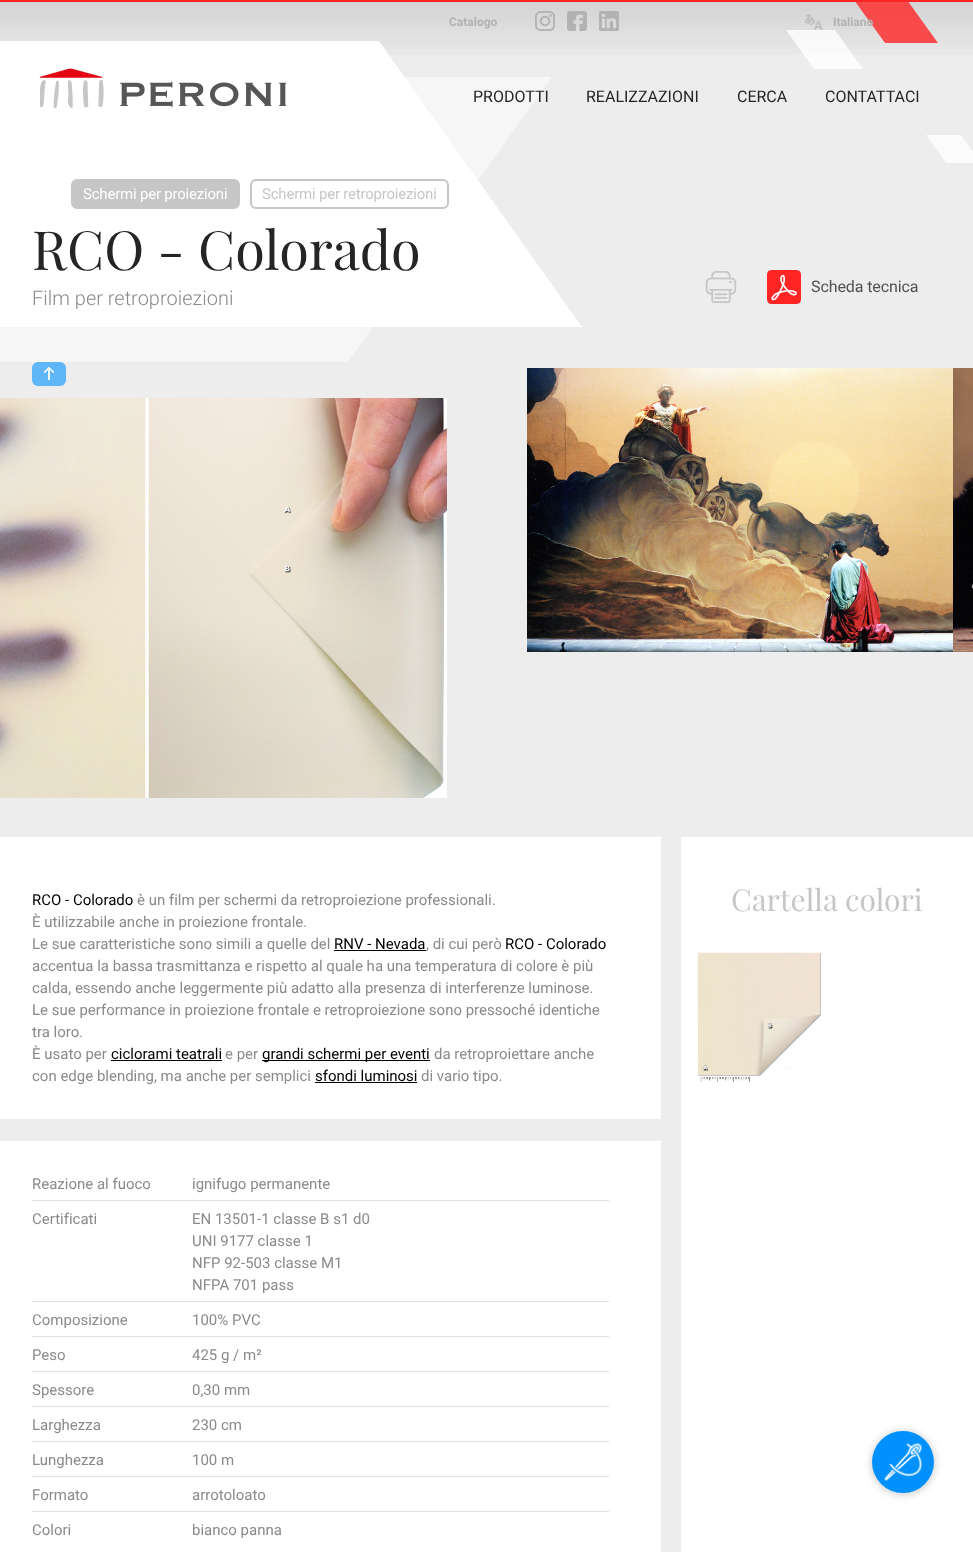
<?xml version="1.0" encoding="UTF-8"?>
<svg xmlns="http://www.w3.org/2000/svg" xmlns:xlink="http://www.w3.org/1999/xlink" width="973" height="1552">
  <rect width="100%" height="100%" fill="#ededed" />
  <image x="0" y="2" width="973" height="53" xlink:href="image1.png" />
  <image x="535" y="11" width="20" height="20" xlink:href="image2.png" />
  <image x="567" y="11" width="20" height="20" xlink:href="image3.png" />
  <image x="599" y="11" width="20" height="20" xlink:href="image4.png" />
  <image x="805" y="14" width="18" height="16" xlink:href="image5.png" />
  <path d="M -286 41 h 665 l 203 286 h -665 z" fill="#ffffff" />
  <path d="M -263 77 h 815 l -204 285 h -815 z" fill="#ffffff" fill-opacity="0.48" />
  <image x="39" y="68" width="65" height="41" xlink:href="image6.png" />
  <image x="120" y="81" width="167" height="26" xlink:href="image7.png" />
  <path d="M 786 30 h 49 l 28 39 h -49 z" fill="#ffffff" fill-opacity="0.8" />
  <path d="M 854 0 h 53 l 31 43 h -53 z" fill="#ff2525" fill-opacity="0.8" />
  <rect width="973" height="2" fill="#ff2525" />
  <path d="M 926 135 h 35 l 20 28 h -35 z" fill="#fbfbfb" />
  <rect x="72" y="180" width="167" height="28" rx="5" fill="#c6c6c6" stroke="#c6c6c6" stroke-width="2" />
  <rect x="251" y="180" width="197" height="28" rx="5" fill="none" stroke="#c6c6c6" stroke-width="2" />
  <rect x="32" y="362" width="34" height="24" rx="6" fill="#5fb6f8" />
  <image x="44" y="367" width="10" height="13" xlink:href="image8.png" />
  <image x="705" y="271" width="32" height="32" xlink:href="image9.png" />
  <image x="767" y="270" width="34" height="34" xlink:href="image10.png" />
  <image x="0" y="398" width="447" height="400" xlink:href="image11.png" />
  <image x="527" y="368" width="426" height="284" xlink:href="image12.png" />
  <image x="953" y="368" width="20" height="284" xlink:href="image13.png" />
  <rect y="837" width="661" height="715" fill="#ffffff" />
  <rect x="334" y="950" width="92" height="1" fill="#000000" />
  <rect x="111" y="1060" width="111" height="1" fill="#000000" />
  <rect x="262" y="1060" width="168" height="1" fill="#000000" />
  <rect x="315" y="1082" width="102" height="1" fill="#000000" />
  <rect y="1119" width="661" height="22" fill="#ededed" />
  <rect x="32" y="1200" width="577" height="1" fill="#dfdfdf" />
  <rect x="32" y="1301" width="577" height="1" fill="#dfdfdf" />
  <rect x="32" y="1336" width="577" height="1" fill="#dfdfdf" />
  <rect x="32" y="1371" width="577" height="1" fill="#dfdfdf" />
  <rect x="32" y="1406" width="577" height="1" fill="#dfdfdf" />
  <rect x="32" y="1441" width="577" height="1" fill="#dfdfdf" />
  <rect x="32" y="1476" width="577" height="1" fill="#dfdfdf" />
  <rect x="32" y="1511" width="577" height="1" fill="#dfdfdf" />
  <rect x="681" y="837" width="292" height="715" fill="#ffffff" />
  <image x="697" y="951" width="124" height="131" xlink:href="image14.png" />
  <rect x="872" y="1432" width="62" height="62" rx="31" fill="#000000" fill-opacity="0.24" filter="blur(4px)" />
  <circle cx="903" cy="1462" r="31" fill="#0091ff" />
  <image x="884" y="1443" width="38" height="38" xlink:href="image15.png" />
  <text x="449" y="26" style="font-family: Roboto; font-size: 12px; font-weight: bold; fill: #b2b2b2">Catalogo</text>
  <text x="833" y="26" style="font-family: Roboto; font-size: 12px; font-weight: bold; fill: #b2b2b2">Italiano</text>
  <text x="473" y="102" style="font-family: Roboto; font-size: 16px; fill: #232527">PRODOTTI</text>
  <text x="586" y="102" style="font-family: Roboto; font-size: 16px; fill: #232527">REALIZZAZIONI</text>
  <text x="737" y="102" style="font-family: Roboto; font-size: 16px; fill: #232527">CERCA</text>
  <text x="825" y="102" style="font-family: Roboto; font-size: 16px; fill: #232527">CONTATTACI</text>
  <text x="83" y="199" style="font-family: Roboto; font-size: 15px; letter-spacing: -0.2px; fill: #ffffff">Schermi per proiezioni</text>
  <text x="262" y="199" style="font-family: Roboto; font-size: 15px; letter-spacing: -0.2px; fill: #c6c6c6">Schermi per retroproiezioni</text>
  <text x="32" y="270" style="font-family: Playfair Display; font-size: 54px; fill: #232527">RCO - Colorado</text>
  <text x="811" y="292" style="font-family: Roboto; font-size: 16px; letter-spacing: -0.1px; fill: #4e5052">Scheda tecnica</text>
  <text x="32" y="305" style="font-family: Roboto; font-size: 20px; font-weight: 300; fill: #8a8a8a">Film per retroproiezioni</text>
  <text x="32" y="905" style="font-family: Roboto; font-size: 15px; fill: #000000">RCO - Colorado</text>
  <text x="137" y="905" style="font-family: Roboto; font-size: 15px; fill: #8a8a8a">è un film per schermi da retroproiezione professionali.</text>
  <text x="32" y="927" style="font-family: Roboto; font-size: 15px; fill: #8a8a8a">È utilizzabile anche in proiezione frontale.</text>
  <text x="32" y="949" style="font-family: Roboto; font-size: 15px; fill: #8a8a8a">Le sue caratteristiche sono simili a quelle del</text>
  <text x="334" y="949" style="font-family: Roboto; font-size: 15px; fill: #000000">RNV - Nevada</text>
  <text x="426" y="949" style="font-family: Roboto; font-size: 15px; fill: #8a8a8a">, di cui però</text>
  <text x="505" y="949" style="font-family: Roboto; font-size: 15px; fill: #000000">RCO - Colorado</text>
  <text x="32" y="971" style="font-family: Roboto; font-size: 15px; fill: #8a8a8a">accentua la bassa trasmittanza e rispetto al quale ha una temperatura di colore è più</text>
  <text x="32" y="993" style="font-family: Roboto; font-size: 15px; fill: #8a8a8a">calda, essendo anche leggermente più adatto alla presenza di interferenze luminose.</text>
  <text x="32" y="1015" style="font-family: Roboto; font-size: 15px; fill: #8a8a8a">Le sue performance in proiezione frontale e retroproiezione sono pressoché identiche</text>
  <text x="32" y="1037" style="font-family: Roboto; font-size: 15px; fill: #8a8a8a">tra loro.</text>
  <text x="32" y="1059" style="font-family: Roboto; font-size: 15px; fill: #8a8a8a">È usato per</text>
  <text x="111" y="1059" style="font-family: Roboto; font-size: 15px; fill: #000000">ciclorami teatrali</text>
  <text x="225" y="1059" style="font-family: Roboto; font-size: 15px; fill: #8a8a8a">e per</text>
  <text x="262" y="1059" style="font-family: Roboto; font-size: 15px; fill: #000000">grandi schermi per eventi</text>
  <text x="434" y="1059" style="font-family: Roboto; font-size: 15px; fill: #8a8a8a">da retroproiettare anche</text>
  <text x="32" y="1081" style="font-family: Roboto; font-size: 15px; fill: #8a8a8a">con edge blending, ma anche per semplici</text>
  <text x="315" y="1081" style="font-family: Roboto; font-size: 15px; fill: #000000">sfondi luminosi</text>
  <text x="421" y="1081" style="font-family: Roboto; font-size: 15px; fill: #8a8a8a">di vario tipo.</text>
  <text x="32" y="1189" style="font-family: Roboto; font-size: 15px; fill: #8a8a8a">Reazione al fuoco</text>
  <text x="192" y="1189" style="font-family: Roboto; font-size: 15px; fill: #8a8a8a">ignifugo permanente</text>
  <text x="32" y="1224" style="font-family: Roboto; font-size: 15px; fill: #8a8a8a">Certificati</text>
  <text x="192" y="1224" style="font-family: Roboto; font-size: 15px; fill: #8a8a8a">EN 13501-1 classe B s1 d0</text>
  <text x="192" y="1246" style="font-family: Roboto; font-size: 15px; fill: #8a8a8a">UNI 9177 classe 1</text>
  <text x="192" y="1268" style="font-family: Roboto; font-size: 15px; fill: #8a8a8a">NFP 92-503 classe M1</text>
  <text x="192" y="1290" style="font-family: Roboto; font-size: 15px; fill: #8a8a8a">NFPA 701 pass</text>
  <text x="32" y="1325" style="font-family: Roboto; font-size: 15px; fill: #8a8a8a">Composizione</text>
  <text x="192" y="1325" style="font-family: Roboto; font-size: 15px; fill: #8a8a8a">100% PVC</text>
  <text x="32" y="1360" style="font-family: Roboto; font-size: 15px; fill: #8a8a8a">Peso</text>
  <text x="192" y="1360" style="font-family: Roboto; font-size: 15px; fill: #8a8a8a">425 g / m²</text>
  <text x="32" y="1395" style="font-family: Roboto; font-size: 15px; fill: #8a8a8a">Spessore</text>
  <text x="192" y="1395" style="font-family: Roboto; font-size: 15px; fill: #8a8a8a">0,30 mm</text>
  <text x="32" y="1430" style="font-family: Roboto; font-size: 15px; fill: #8a8a8a">Larghezza</text>
  <text x="192" y="1430" style="font-family: Roboto; font-size: 15px; fill: #8a8a8a">230 cm</text>
  <text x="32" y="1465" style="font-family: Roboto; font-size: 15px; fill: #8a8a8a">Lunghezza</text>
  <text x="192" y="1465" style="font-family: Roboto; font-size: 15px; fill: #8a8a8a">100 m</text>
  <text x="32" y="1500" style="font-family: Roboto; font-size: 15px; fill: #8a8a8a">Formato</text>
  <text x="192" y="1500" style="font-family: Roboto; font-size: 15px; fill: #8a8a8a">arrotoloato</text>
  <text x="32" y="1535" style="font-family: Roboto; font-size: 15px; fill: #8a8a8a">Colori</text>
  <text x="192" y="1535" style="font-family: Roboto; font-size: 15px; fill: #8a8a8a">bianco panna</text>
  <text x="731" y="911" style="font-family: Playfair Display; font-size: 30px; fill: #c6c6c6">Cartella colori</text>
</svg>
